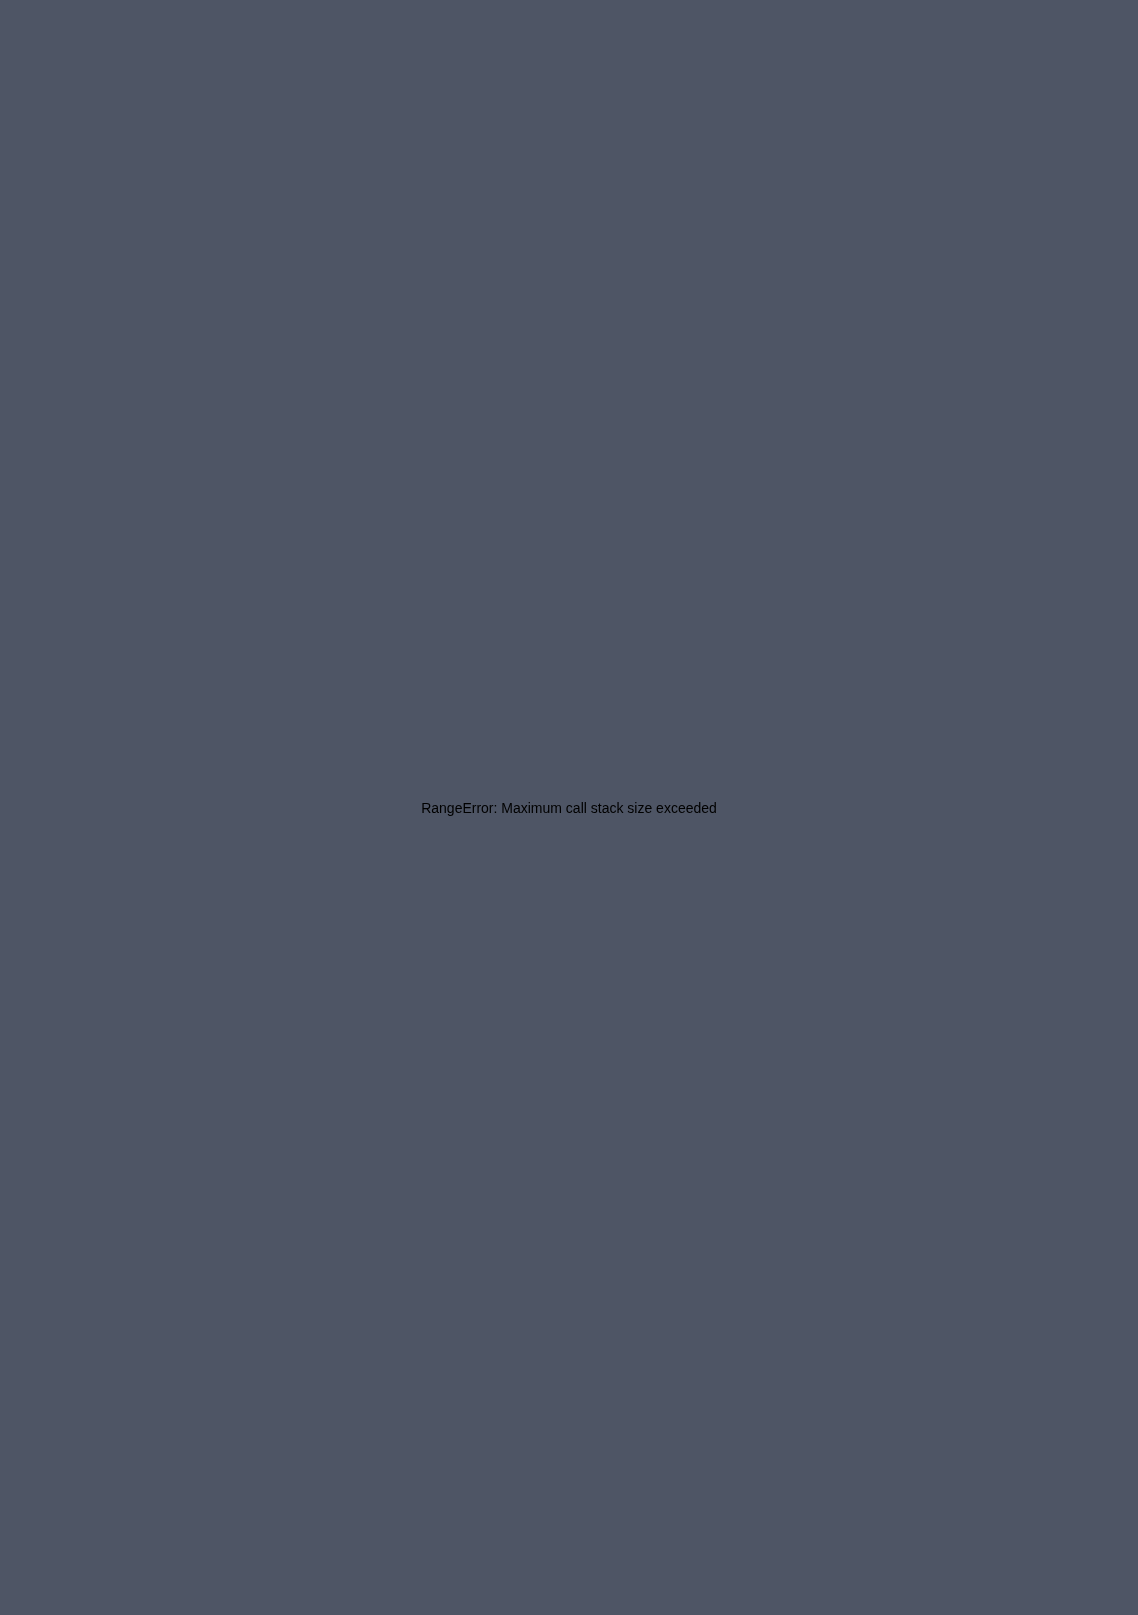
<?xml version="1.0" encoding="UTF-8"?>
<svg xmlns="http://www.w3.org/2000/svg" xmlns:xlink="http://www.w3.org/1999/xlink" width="1138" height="1615">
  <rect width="100%" height="100%" fill="#4e5565" />
  <image x="422" y="802" width="294" height="14" xlink:href="image1.png" />
</svg>
